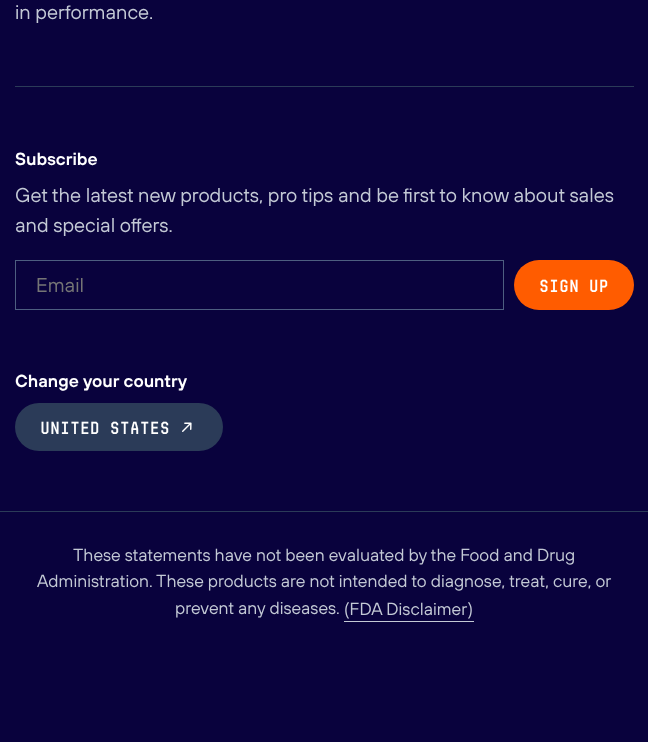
<?xml version="1.0" encoding="UTF-8"?>
<svg xmlns="http://www.w3.org/2000/svg" xmlns:xlink="http://www.w3.org/1999/xlink" width="648" height="742">
  <defs>
    <linearGradient id="g1" gradientUnits="userSpaceOnUse" x1="344" y1="622" x2="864" y2="622"><stop offset="0" stop-color="#c3c9d5" /><stop offset="0.25" stop-color="#c3c9d5" /><stop offset="0.26" stop-color="#09023d" /><stop offset="0.74" stop-color="#09023d" /><stop offset="0.75" stop-color="#c3c9d5" /><stop offset="1" stop-color="#c3c9d5" /></linearGradient>
  </defs>
  <rect width="100%" height="100%" fill="#09023d" />
  <rect x="15" y="86" width="619" height="1" fill="#2b3b58" />
  <rect x="15.5" y="260.5" width="488" height="49" fill="none" stroke="#4d5e80" />
  <rect x="514" y="260" width="120" height="50" rx="25" fill="#ff5c00" />
  <rect x="15" y="403" width="208" height="48" rx="24" fill="#2b3b58" />
  <image x="182" y="422" width="10" height="10" xlink:href="image1.png" />
  <rect y="511" width="648" height="1" fill="#2b3b58" />
  <rect x="344" y="621" width="130" height="1" fill="url(#g1)" />
  <text x="15" y="19" style="font-family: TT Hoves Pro; font-size: 20px; fill: #c3c9d5">in performance.</text>
  <text x="15" y="165" style="font-family: TT Hoves Pro; font-size: 17.5px; font-weight: 600; fill: #ffffff">Subscribe</text>
  <text x="15" y="202" style="font-family: TT Hoves Pro; font-size: 20px; fill: #c3c9d5">Get the latest new products, pro tips and be first to know about sales</text>
  <text x="15" y="232" style="font-family: TT Hoves Pro; font-size: 20px; fill: #c3c9d5">and special offers.</text>
  <text x="36" y="292" style="font-family: TT Hoves Pro; font-size: 20px; fill: #757575">Email</text>
  <text x="539" y="292" style="font-family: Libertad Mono; font-size: 17.5px; font-weight: bold; fill: #ffffff">Sign up</text>
  <text x="15" y="387" style="font-family: TT Hoves Pro; font-size: 17.5px; font-weight: 600; fill: #ffffff">Change your country</text>
  <text x="40" y="434" style="font-family: Libertad Mono; font-size: 17.5px; font-weight: bold; fill: #ffffff">United States</text>
  <text x="73" y="561" style="font-family: TT Hoves Pro; font-size: 17.5px; fill: #c3c9d5">These statements have not been evaluated by the Food and Drug</text>
  <text x="37" y="587" style="font-family: TT Hoves Pro; font-size: 17.5px; fill: #c3c9d5">Administration. These products are not intended to diagnose, treat, cure, or</text>
  <text x="175" y="614" style="font-family: TT Hoves Pro; font-size: 17.5px; fill: #c3c9d5">prevent any diseases.</text>
  <text x="344" y="615" style="font-family: TT Hoves Pro; font-size: 17.5px; fill: #c3c9d5">(FDA Disclaimer)</text>
</svg>
